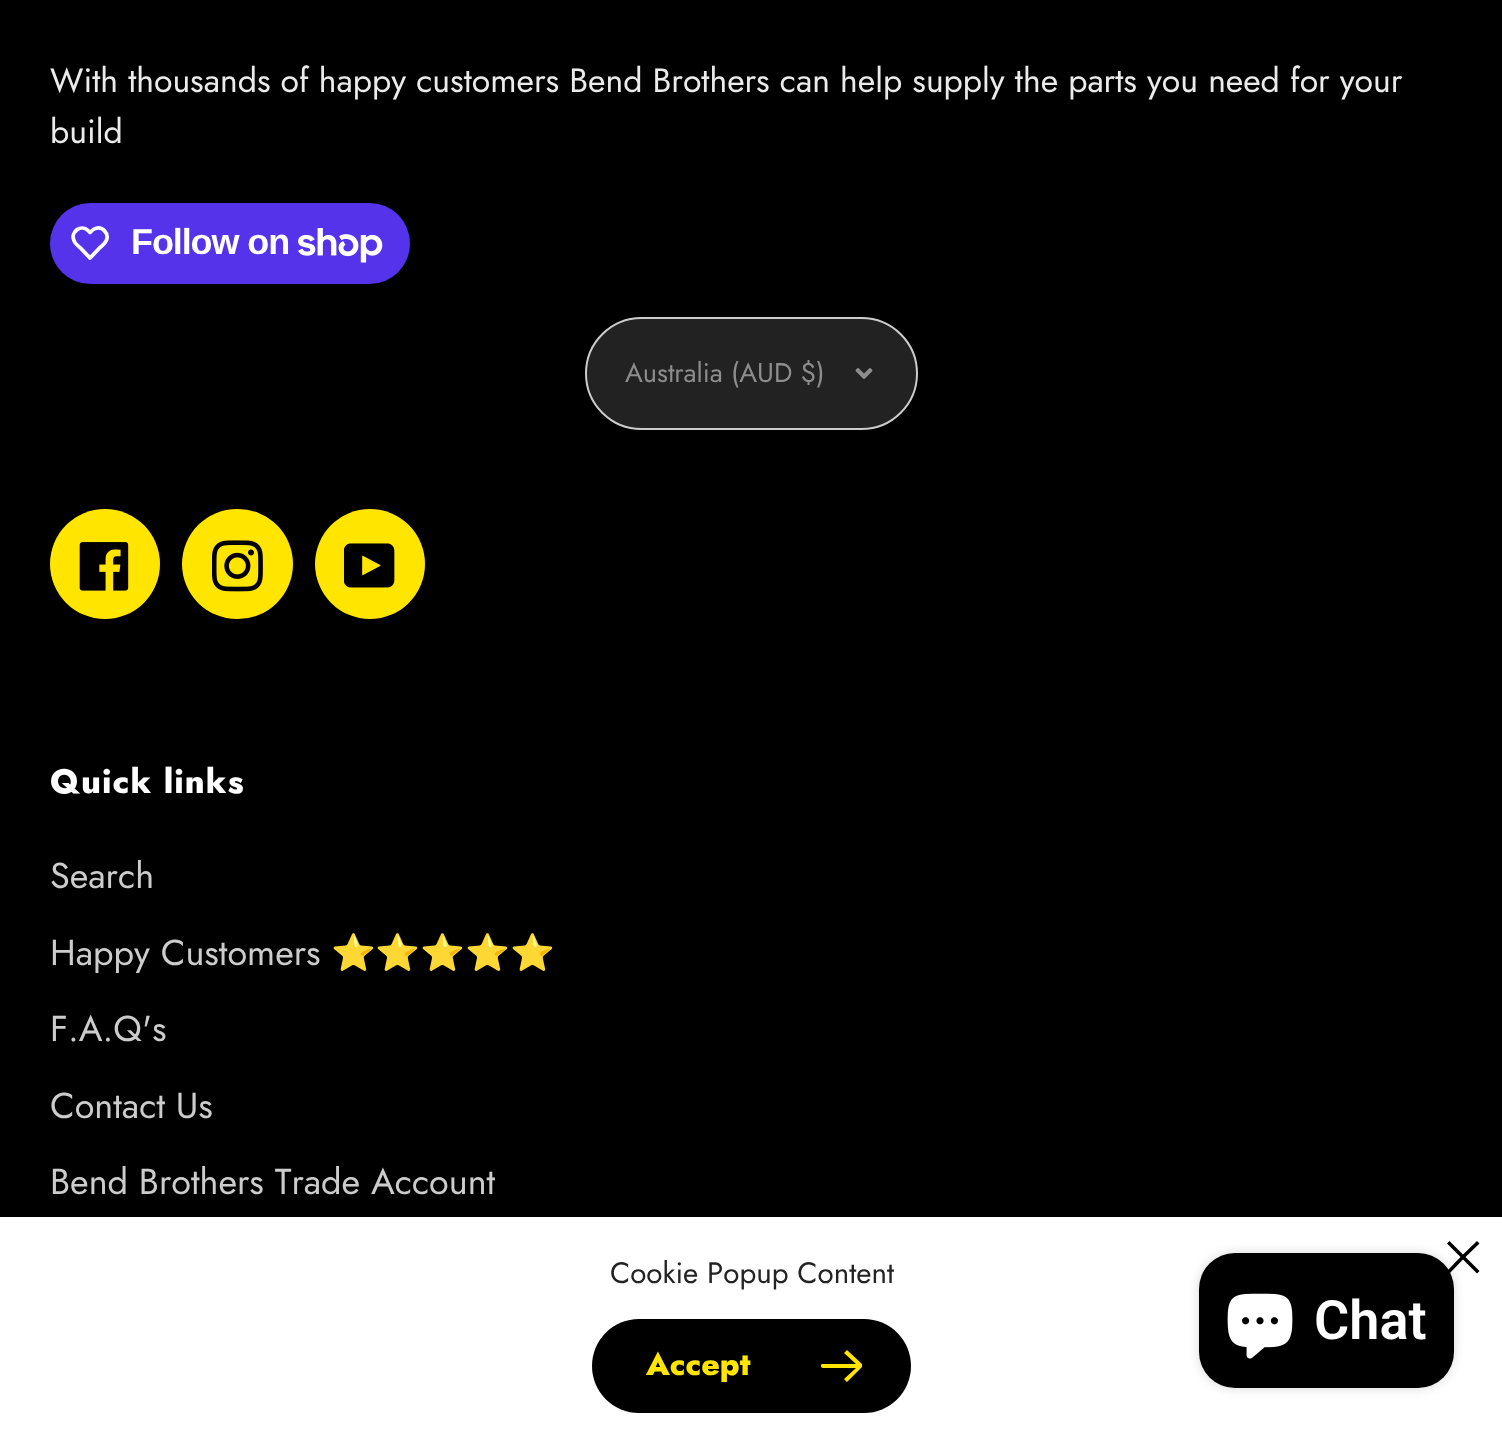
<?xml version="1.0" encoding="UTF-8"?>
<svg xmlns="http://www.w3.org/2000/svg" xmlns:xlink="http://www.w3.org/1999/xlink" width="1502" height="1435">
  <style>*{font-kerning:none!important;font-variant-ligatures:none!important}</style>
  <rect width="100%" height="100%" fill="#000000" />
  <rect x="50" y="203" width="360" height="81" rx="40.5" fill="#5433eb" />
  <path d="M 88 230.5 l 2 2 c 1.5 -1.5 3 -3.5 5.5 -4 c 7 -2.5 13.5 5 11 11.5 c -1.5 3.5 -4.5 6 -7 8 l -9.5 10 l -9.5 -10 c -2.5 -2 -5.5 -4.5 -6.5 -7.5 c -4 -9 7.5 -16.5 14 -10 z" fill="none" stroke="#ffffff" stroke-width="3.8" stroke-linejoin="round" />
  <image x="298" y="228" width="85" height="35" xlink:href="image1.png" />
  <rect x="586" y="318" width="331" height="111" rx="55.5" fill="#222222" stroke="#cccccc" stroke-width="2" />
  <image x="855" y="368" width="18" height="11" xlink:href="image2.png" />
  <circle cx="105" cy="564" r="55" fill="#ffe500" />
  <image x="79" y="542" width="50" height="49" xlink:href="image3.png" />
  <rect x="182" y="509" width="111" height="110" rx="55" fill="#ffe500" />
  <image x="212" y="540" width="51" height="52" xlink:href="image4.png" />
  <circle cx="370" cy="564" r="55" fill="#ffe500" />
  <image x="344" y="543" width="51" height="45" xlink:href="image5.png" />
  <rect y="1217" width="1502" height="218" fill="#ffffff" />
  <path d="M 1463 1254.5 l 14 -13.5 l 2.5 2.5 l -14 13.5 l 14 14 l -2.5 2.5 l -14 -14 l -13.5 14 l -2.5 -2.5 l 13.5 -14 l -13.5 -13.5 l 2.5 -2.5 z" fill="#000000" fill-rule="evenodd" />
  <rect x="592" y="1319" width="319" height="94" rx="47" fill="#000000" />
  <path d="M 862 1364 l -15 -14 l -3 3 l 12 11 h -34 c -2 1 -1 4 1 4 h 33 l -12 11 l 3 3 l 15 -15 c 0 -1 0 -2 0 -3 z" fill="#ffe500" />
  <rect x="1199" y="1253" width="255" height="135" rx="36" fill="#000000" fill-opacity="0.15" filter="blur(5.5px)" />
  <rect x="1199" y="1253" width="255" height="135" rx="36" fill="#000000" />
  <image x="1227" y="1293" width="66" height="66" xlink:href="image6.png" />
  <text x="50" y="92" style="font-family: Jost; font-size: 33.75px; fill: #ebebeb">With thousands of happy customers Bend Brothers can help supply the parts you need for your</text>
  <text x="50" y="143" style="font-family: Jost; font-size: 33.75px; fill: #ebebeb">build</text>
  <text x="131" y="254" style="font-family: Liberation Sans; font-size: 36px; font-weight: bold; letter-spacing: -1.1px; fill: #ffffff">Follow on</text>
  <text x="625" y="382" style="font-family: Jost; font-size: 27px; fill: #8d8d8d">Australia (AUD $)</text>
  <text x="50" y="793" style="font-family: Jost; font-size: 33.75px; font-weight: 800; letter-spacing: 1.1px; fill: #ffffff">Quick links</text>
  <text x="50" y="888" style="font-family: Jost; font-size: 36px; fill: #cccccc">Search</text>
  <text x="50" y="965" style="font-family: Jost; font-size: 36px; fill: #cccccc">Happy Customers</text>
  <text x="331" y="965" style="font-family: Noto Color Emoji; font-size: 36px; fill: #cccccc">⭐⭐⭐⭐⭐</text>
  <text x="50" y="1041" style="font-family: Jost; font-size: 36px; fill: #cccccc">F.A.Q's</text>
  <text x="50" y="1118" style="font-family: Jost; font-size: 36px; fill: #cccccc">Contact Us</text>
  <text x="50" y="1194" style="font-family: Jost; font-size: 36px; fill: #cccccc">Bend Brothers Trade Account</text>
  <text x="610" y="1283" style="font-family: Jost; font-size: 29.5px; fill: #232323">Cookie Popup Content</text>
  <text x="646" y="1375" style="font-family: Jost; font-size: 31.5px; font-weight: 800; fill: #ffe500">Accept</text>
  <text x="1314" y="1339" style="font-family: Roboto; font-size: 54px; font-weight: 600; fill: #ffffff">Chat</text>
</svg>
